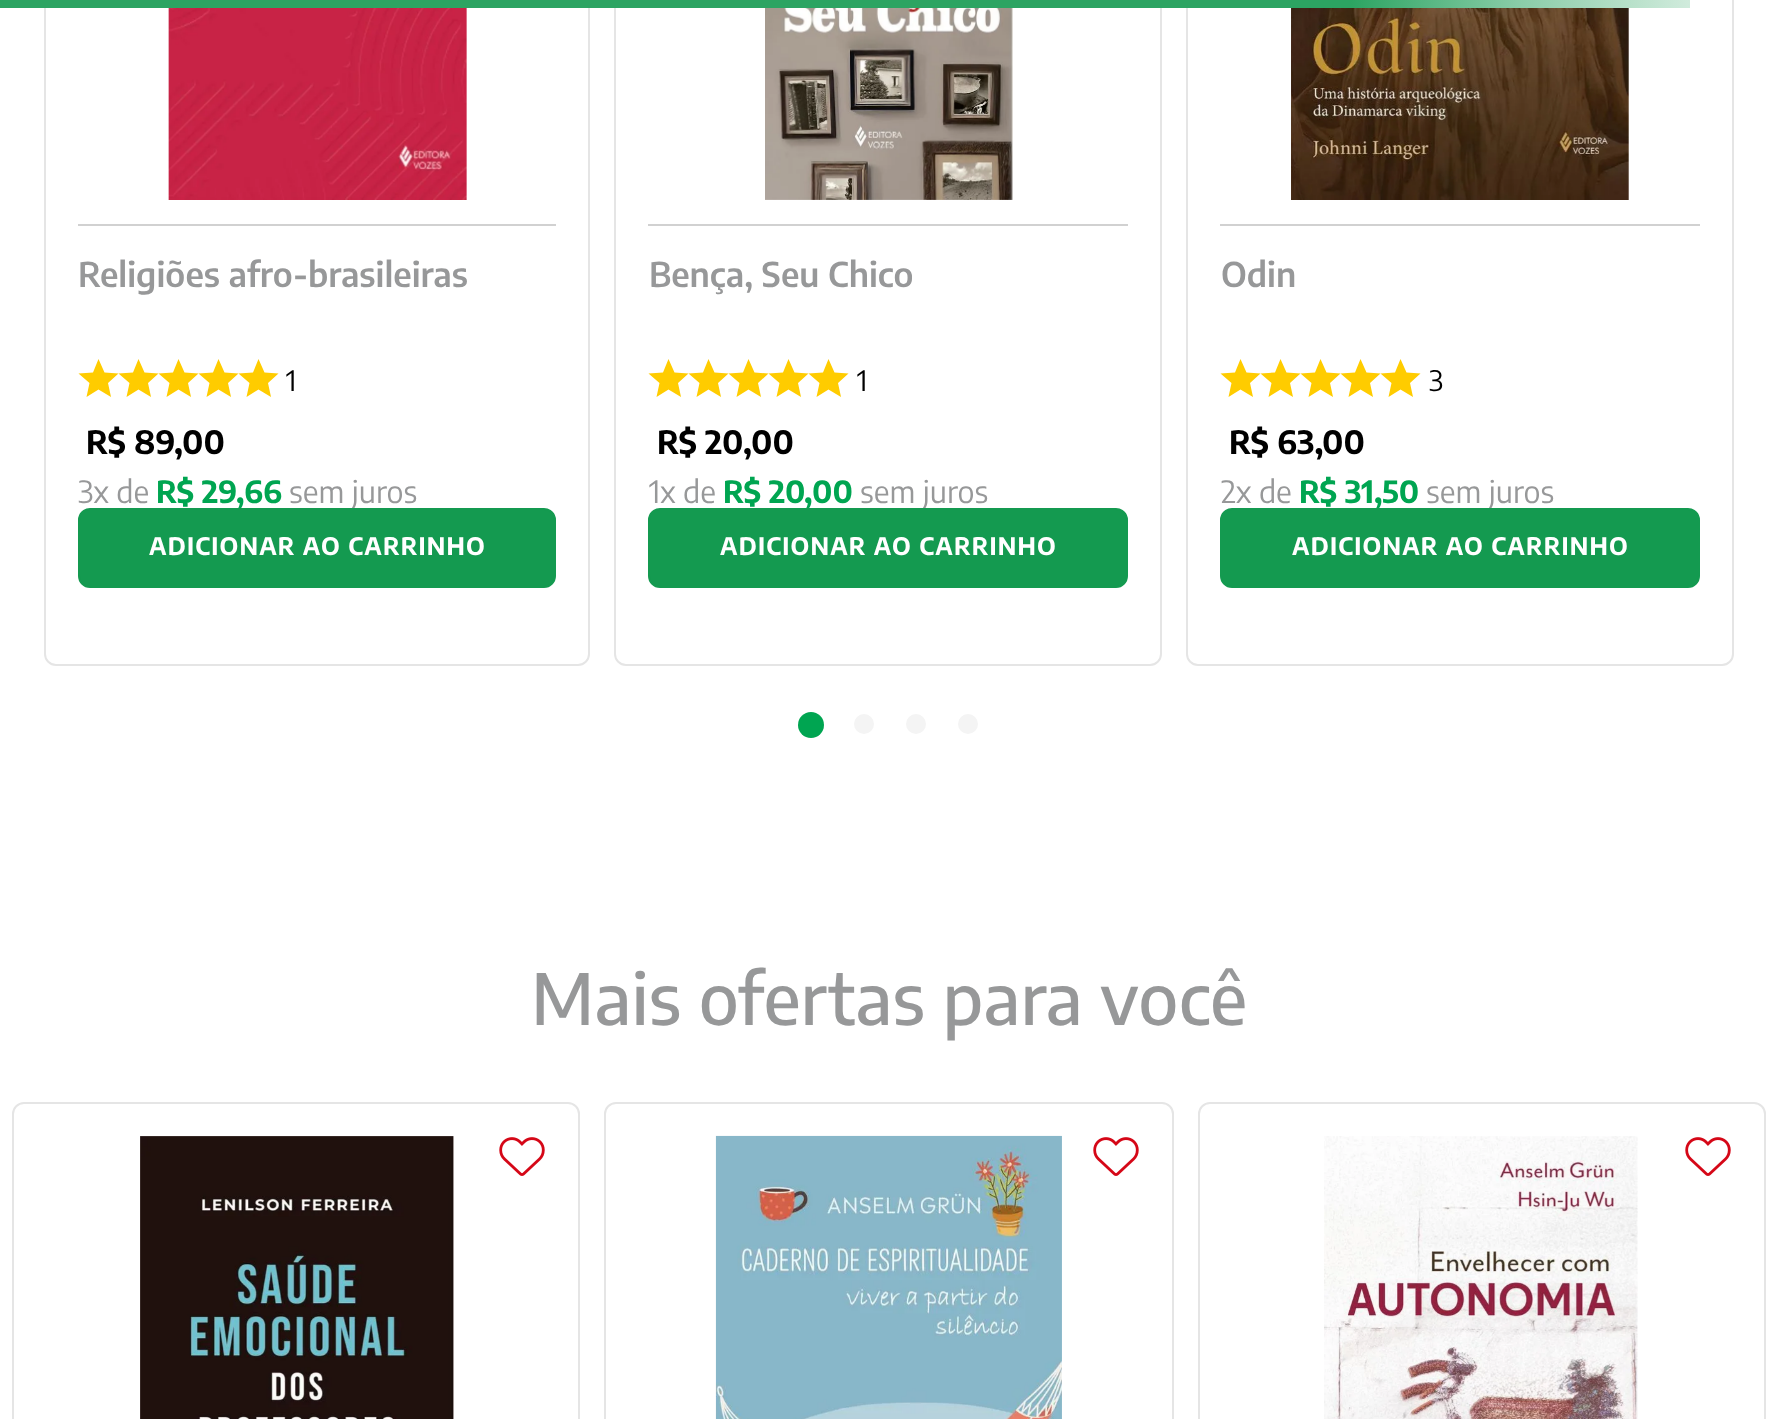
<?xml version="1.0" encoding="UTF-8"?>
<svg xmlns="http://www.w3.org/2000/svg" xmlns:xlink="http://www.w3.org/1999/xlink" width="1777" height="1419">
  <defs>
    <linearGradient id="g1" gradientUnits="userSpaceOnUse" x1="0" y1="4" x2="1689" y2="4"><stop offset="0.8" stop-color="#2ca462" /><stop offset="0.9" stop-color="#8acda8" /><stop offset="1" stop-color="#d0ebdc" /></linearGradient>
    <clipPath id="clip1"><rect x="648" y="250" width="264" height="84" /></clipPath>
  </defs>
  <rect width="100%" height="100%" fill="#ffffff" />
  <rect x="45" y="-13" width="544" height="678" rx="11" fill="none" stroke="#e5e5e5" stroke-width="2" />
  <rect x="615" y="-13" width="546" height="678" rx="11" fill="none" stroke="#e5e5e5" stroke-width="2" />
  <rect x="1187" y="-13" width="546" height="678" rx="11" fill="none" stroke="#e5e5e5" stroke-width="2" />
  <rect width="1690" height="8" fill="url(#g1)" />
  <image x="168" y="8" width="299" height="192" xlink:href="image1.png" />
  <rect x="78" y="224" width="478" height="2" fill="#d1d1d1" />
  <path d="M 98.5 389.5 l 12.5 7.5 l -3 -14 l 10.5 -9.5 l -14 -1 l -6 -13.5 l -5.5 13.5 l -14.5 1 l 11 9.5 l -3 14 z" fill="#ffcc00" />
  <path d="M 138.5 389.5 l 12.5 7.5 l -3 -14 l 10.5 -9.5 l -14 -1 l -6 -13.5 l -5.5 13.5 l -14.5 1 l 11 9.5 l -3 14 z" fill="#ffcc00" />
  <path d="M 178.5 389.5 l 12.5 7.5 l -3 -14 l 10.5 -9.5 l -14 -1 l -6 -13.5 l -5.5 13.5 l -14.5 1 l 11 9.5 l -3 14 z" fill="#ffcc00" />
  <path d="M 218.5 389.5 l 12.5 7.5 l -3 -14 l 10.5 -9.5 l -14 -1 l -6 -13.5 l -5.5 13.5 l -14.5 1 l 11 9.5 l -3 14 z" fill="#ffcc00" />
  <path d="M 258.5 389.5 l 12.5 7.5 l -3 -14 l 10.5 -9.5 l -14 -1 l -6 -13.5 l -5.5 13.5 l -14.5 1 l 11 9.5 l -3 14 z" fill="#ffcc00" />
  <image x="765" y="8" width="248" height="192" xlink:href="image2.png" />
  <rect x="648" y="224" width="480" height="2" fill="#d1d1d1" />
  <path d="M 668.5 389.5 l 12.5 7.5 l -3 -14 l 10.5 -9.5 l -14 -1 l -6 -13.5 l -5.5 13.5 l -14.5 1 l 11 9.5 l -3 14 z" fill="#ffcc00" />
  <path d="M 708.5 389.5 l 12.5 7.5 l -3 -14 l 10.5 -9.5 l -14 -1 l -6 -13.5 l -5.5 13.5 l -14.5 1 l 11 9.5 l -3 14 z" fill="#ffcc00" />
  <path d="M 748.5 389.5 l 12.5 7.5 l -3 -14 l 10.5 -9.5 l -14 -1 l -6 -13.5 l -5.5 13.5 l -14.5 1 l 11 9.5 l -3 14 z" fill="#ffcc00" />
  <path d="M 788.5 389.5 l 12.5 7.5 l -3 -14 l 10.5 -9.5 l -14 -1 l -6 -13.5 l -5.5 13.5 l -14.5 1 l 11 9.5 l -3 14 z" fill="#ffcc00" />
  <path d="M 828.5 389.5 l 12.5 7.5 l -3 -14 l 10.5 -9.5 l -14 -1 l -6 -13.5 l -5.5 13.5 l -14.5 1 l 11 9.5 l -3 14 z" fill="#ffcc00" />
  <image x="1291" y="8" width="338" height="192" xlink:href="image3.png" />
  <rect x="1220" y="224" width="480" height="2" fill="#d1d1d1" />
  <path d="M 1240.5 389.5 l 12.5 7.5 l -3 -14 l 10.5 -9.5 l -14 -1 l -6 -13.5 l -5.5 13.5 l -14.5 1 l 11 9.5 l -3 14 z" fill="#ffcc00" />
  <path d="M 1280.5 389.5 l 12.5 7.5 l -3 -14 l 10.5 -9.5 l -14 -1 l -6 -13.5 l -5.5 13.5 l -14.5 1 l 11 9.5 l -3 14 z" fill="#ffcc00" />
  <path d="M 1320.5 389.5 l 12.5 7.5 l -3 -14 l 10.5 -9.5 l -14 -1 l -6 -13.5 l -5.5 13.5 l -14.5 1 l 11 9.5 l -3 14 z" fill="#ffcc00" />
  <path d="M 1360.5 389.5 l 12.5 7.5 l -3 -14 l 10.5 -9.5 l -14 -1 l -6 -13.5 l -5.5 13.5 l -14.5 1 l 11 9.5 l -3 14 z" fill="#ffcc00" />
  <path d="M 1400.5 389.5 l 12.5 7.5 l -3 -14 l 10.5 -9.5 l -14 -1 l -6 -13.5 l -5.5 13.5 l -14.5 1 l 11 9.5 l -3 14 z" fill="#ffcc00" />
  <circle cx="811" cy="725" r="13" fill="#00a551" />
  <circle cx="864" cy="724" r="10" fill="#f4f4f4" />
  <circle cx="916" cy="724" r="10" fill="#f4f4f4" />
  <circle cx="968" cy="724" r="10" fill="#f4f4f4" />
  <rect x="13" y="1103" width="566" height="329" rx="11" fill="none" stroke="#e5e5e5" stroke-width="2" />
  <image x="140" y="1136" width="314" height="283" xlink:href="image4.png" />
  <image x="499" y="1137" width="46" height="39" xlink:href="image5.png" />
  <rect x="605" y="1103" width="568" height="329" rx="11" fill="none" stroke="#e5e5e5" stroke-width="2" />
  <image x="715" y="1135" width="347" height="284" xlink:href="image6.png" />
  <image x="1093" y="1137" width="46" height="39" xlink:href="image5.png" />
  <rect x="1199" y="1103" width="566" height="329" rx="11" fill="none" stroke="#e5e5e5" stroke-width="2" />
  <image x="1324" y="1136" width="314" height="283" xlink:href="image7.png" />
  <image x="1685" y="1137" width="46" height="39" xlink:href="image5.png" />
  <text x="78" y="287" style="font-family: Encode Sans; font-size: 34px; font-weight: 600; fill: #979899">Religiões afro-brasileiras</text>
  <text x="286" y="391" style="font-family: Encode Sans; font-size: 28px; fill: #000000">1</text>
  <text x="86" y="454" style="font-family: Encode Sans; font-size: 32px; font-weight: bold; fill: #000000">R$ 89</text>
  <text x="174" y="454" style="font-family: Encode Sans; font-size: 32px; font-weight: bold; fill: #000000">,</text>
  <text x="182" y="454" style="font-family: Encode Sans; font-size: 32px; font-weight: bold; fill: #000000">00</text>
  <text x="78" y="503" style="font-family: Encode Sans; font-size: 30.5px; fill: #979899">3x de</text>
  <text x="156" y="503" style="font-family: Encode Sans; font-size: 30.5px; font-weight: bold; fill: #00a551">R$ 29</text>
  <text x="236" y="503" style="font-family: Encode Sans; font-size: 30.5px; font-weight: bold; fill: #00a551">,</text>
  <text x="244" y="503" style="font-family: Encode Sans; font-size: 30.5px; font-weight: bold; fill: #00a551">66</text>
  <text x="289" y="503" style="font-family: Encode Sans; font-size: 30.5px; fill: #979899">sem juros</text>
  <rect x="79" y="509" width="476" height="78" rx="11" fill="#149a50" stroke="#149a50" stroke-width="2" />
  <text x="149" y="555" style="font-family: Encode Sans; font-size: 24px; font-weight: bold; letter-spacing: 1.2px; fill: #ffffff">ADICIONAR AO CARRINHO</text>
  <g clip-path="url(#clip1)">
    <text x="649" y="287" style="font-family: Encode Sans; font-size: 34px; font-weight: 600; fill: #979899">Bença, Seu Chico</text>
  </g>
  <text x="857" y="391" style="font-family: Encode Sans; font-size: 28px; fill: #000000">1</text>
  <text x="657" y="454" style="font-family: Encode Sans; font-size: 32px; font-weight: bold; fill: #000000">R$ 20</text>
  <text x="743" y="454" style="font-family: Encode Sans; font-size: 32px; font-weight: bold; fill: #000000">,</text>
  <text x="751" y="454" style="font-family: Encode Sans; font-size: 32px; font-weight: bold; fill: #000000">00</text>
  <text x="649" y="503" style="font-family: Encode Sans; font-size: 30.5px; fill: #979899">1x de</text>
  <text x="723" y="503" style="font-family: Encode Sans; font-size: 30.5px; font-weight: bold; fill: #00a551">R$ 20</text>
  <text x="804" y="503" style="font-family: Encode Sans; font-size: 30.5px; font-weight: bold; fill: #00a551">,</text>
  <text x="812" y="503" style="font-family: Encode Sans; font-size: 30.5px; font-weight: bold; fill: #00a551">00</text>
  <text x="860" y="503" style="font-family: Encode Sans; font-size: 30.5px; fill: #979899">sem juros</text>
  <rect x="649" y="509" width="478" height="78" rx="11" fill="#149a50" stroke="#149a50" stroke-width="2" />
  <text x="720" y="555" style="font-family: Encode Sans; font-size: 24px; font-weight: bold; letter-spacing: 1.2px; fill: #ffffff">ADICIONAR AO CARRINHO</text>
  <text x="1221" y="287" style="font-family: Encode Sans; font-size: 34px; font-weight: 600; fill: #979899">Odin</text>
  <text x="1429" y="391" style="font-family: Encode Sans; font-size: 28px; fill: #000000">3</text>
  <text x="1229" y="454" style="font-family: Encode Sans; font-size: 32px; font-weight: bold; fill: #000000">R$ 63,</text>
  <text x="1322" y="454" style="font-family: Encode Sans; font-size: 32px; font-weight: bold; fill: #000000">00</text>
  <text x="1221" y="503" style="font-family: Encode Sans; font-size: 30.5px; fill: #979899">2x de</text>
  <text x="1299" y="503" style="font-family: Encode Sans; font-size: 30.5px; font-weight: bold; fill: #00a551">R$ 31,</text>
  <text x="1382" y="503" style="font-family: Encode Sans; font-size: 30.5px; font-weight: bold; fill: #00a551">50</text>
  <text x="1426" y="503" style="font-family: Encode Sans; font-size: 30.5px; fill: #979899">sem juros</text>
  <rect x="1221" y="509" width="478" height="78" rx="11" fill="#149a50" stroke="#149a50" stroke-width="2" />
  <text x="1292" y="555" style="font-family: Encode Sans; font-size: 24px; font-weight: bold; letter-spacing: 1.2px; fill: #ffffff">ADICIONAR AO CARRINHO</text>
  <text x="531" y="1025" style="font-family: Encode Sans; font-size: 70.4px; font-weight: 500; fill: #979899">Mais ofertas para você</text>
</svg>
